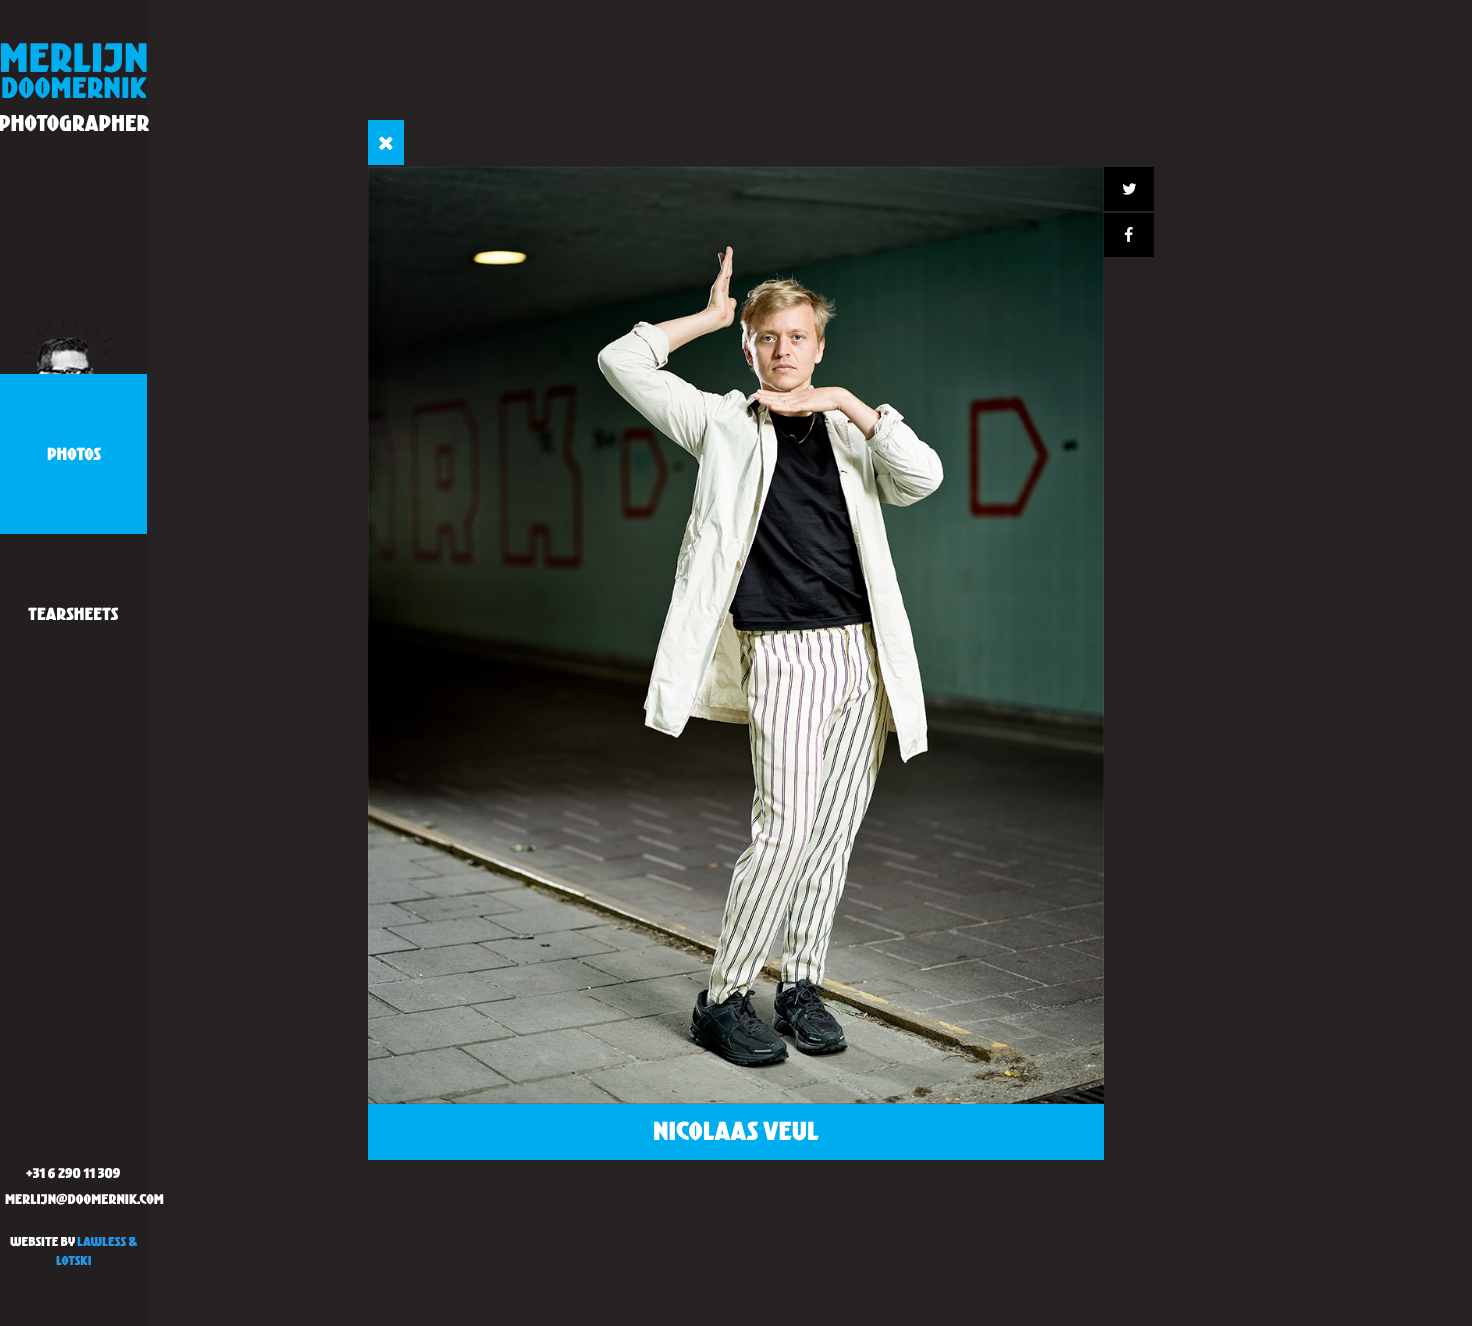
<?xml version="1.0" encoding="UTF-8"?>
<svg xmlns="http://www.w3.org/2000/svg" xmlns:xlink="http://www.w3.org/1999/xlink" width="1472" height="1326">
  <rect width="100%" height="100%" fill="#262122" />
  <rect width="147" height="1326" fill="#231f20" />
  <image x="21" y="320" width="94" height="54" xlink:href="image1.png" />
  <rect y="374" width="147" height="160" fill="#00adef" />
  <rect x="368" y="120" width="36" height="45" fill="#00adef" />
  <image x="379" y="136" width="14" height="14" xlink:href="image2.png" />
  <image x="368" y="166" width="736" height="938" xlink:href="image3.png" />
  <rect x="1104" y="167" width="50" height="44" fill="#000000" />
  <image x="1122" y="183" width="15" height="12" xlink:href="image4.png" />
  <rect x="1104" y="213" width="50" height="44" fill="#000000" />
  <image x="1124" y="227" width="9" height="15" xlink:href="image5.png" />
  <rect x="368" y="1104" width="736" height="56" fill="#00adef" />
  <text x="-1" y="72" style="font-family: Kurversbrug; font-size: 38px; font-weight: bold; fill: #00adef">merlijn</text>
  <text x="1" y="98" style="font-family: Kurversbrug; font-size: 27.25px; font-weight: bold; fill: #00adef">doomernik</text>
  <text x="-2" y="131" style="font-family: Kurversbrug; font-size: 21px; font-weight: bold; fill: #ffffff">photographer</text>
  <text x="47" y="460" style="font-family: Kurversbrug; font-size: 16px; font-weight: bold; fill: #ffffff">photos</text>
  <text x="28" y="620" style="font-family: Kurversbrug; font-size: 16px; font-weight: bold; fill: #ffffff">tearsheets</text>
  <text x="26" y="1178" style="font-family: Kurversbrug; font-size: 13px; font-weight: bold; fill: #ffffff">+31 6 290 11 309</text>
  <text x="5" y="1204" style="font-family: Kurversbrug; font-size: 13px; font-weight: bold; fill: #ffffff">merlijn@doomernik.com</text>
  <text x="10" y="1246" style="font-family: Kurversbrug; font-size: 12px; font-weight: bold; fill: #ffffff">Website by</text>
  <text x="77" y="1246" style="font-family: Kurversbrug; font-size: 12px; font-weight: bold; fill: #2199e8">Lawless &amp;</text>
  <text x="56" y="1265" style="font-family: Kurversbrug; font-size: 12px; font-weight: bold; fill: #2199e8">Lotski</text>
  <text x="653" y="1140" style="font-family: Kurversbrug; font-size: 24px; font-weight: bold; fill: #ffffff">Nicolaas Veul</text>
</svg>
